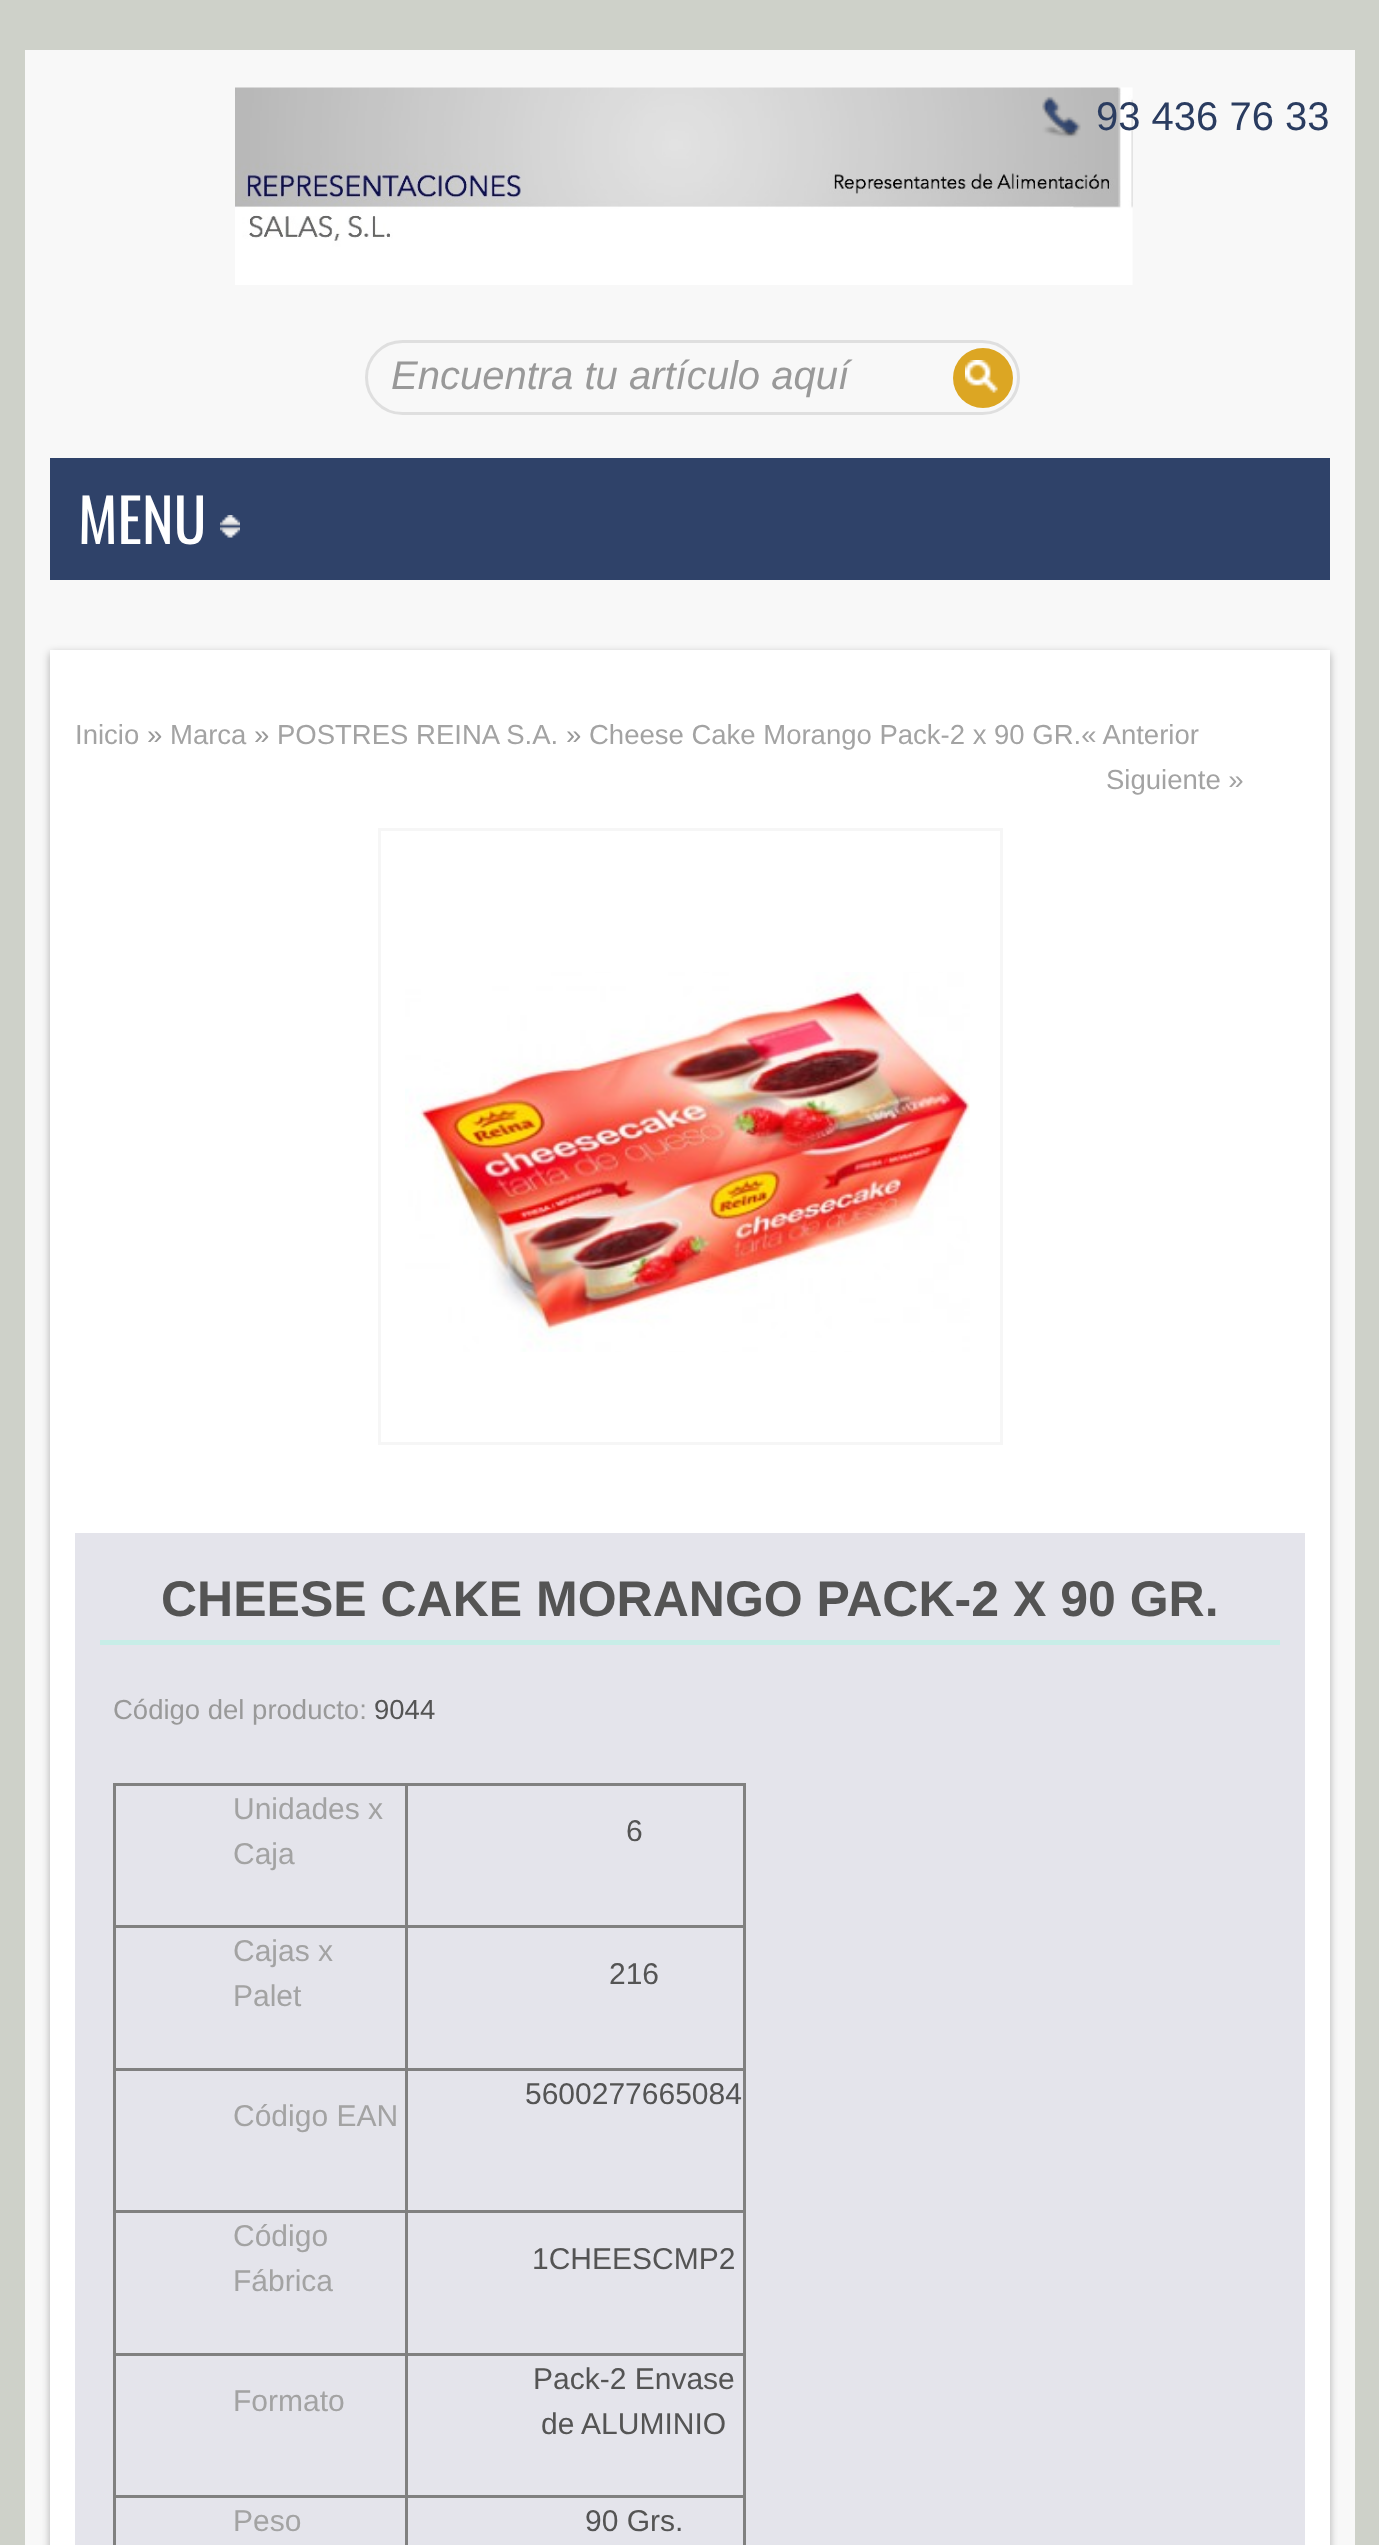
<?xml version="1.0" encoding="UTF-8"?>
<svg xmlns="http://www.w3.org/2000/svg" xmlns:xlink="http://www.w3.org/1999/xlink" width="1379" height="2545">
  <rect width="100%" height="100%" fill="#ced1c9" />
  <rect x="25" y="50" width="1330" height="2495" fill="#f8f8f8" />
  <image x="235" y="87" width="898" height="198" xlink:href="image1.png" />
  <image x="1042" y="96" width="39" height="42" xlink:href="image2.png" />
  <rect x="366.5" y="341.5" width="652" height="72" rx="36" fill="none" stroke="#dfdfdf" stroke-width="3" />
  <circle cx="983" cy="378" r="30" fill="#dca623" />
  <image x="965" y="360" width="33" height="33" xlink:href="image3.png" />
  <rect x="50" y="458" width="1280" height="122" fill="#2f4269" />
  <image x="220" y="515" width="20" height="23" xlink:href="image4.png" />
  <rect x="50" y="653" width="1280" height="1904" fill="#000000" fill-opacity="0.3" filter="blur(4px)" />
  <rect x="50" y="650" width="1280" height="1895" fill="#ffffff" />
  <rect x="379.5" y="829.5" width="622" height="614" fill="none" stroke="#f6f6f6" stroke-width="3" />
  <image x="405" y="972" width="565" height="380" xlink:href="image5.png" />
  <rect x="75" y="1533" width="1230" height="1012" fill="#e4e4eb" />
  <rect x="100" y="1640" width="1180" height="5" fill="#c7ede7" />
  <rect x="113" y="1783" width="632" height="3" fill="#808080" />
  <rect x="743" y="1783" width="3" height="762" fill="#808080" />
  <rect x="113" y="1783" width="3" height="762" fill="#808080" />
  <rect x="405" y="1925" width="340" height="3" fill="#808080" />
  <rect x="405" y="2068" width="340" height="3" fill="#808080" />
  <rect x="405" y="2210" width="340" height="3" fill="#808080" />
  <rect x="405" y="2353" width="340" height="3" fill="#808080" />
  <rect x="405" y="2495" width="340" height="3" fill="#808080" />
  <rect x="405" y="2495" width="3" height="50" fill="#808080" />
  <rect x="113" y="2495" width="295" height="3" fill="#808080" />
  <rect x="405" y="2353" width="3" height="145" fill="#808080" />
  <rect x="113" y="2353" width="295" height="3" fill="#808080" />
  <rect x="405" y="2210" width="3" height="145" fill="#808080" />
  <rect x="113" y="2210" width="295" height="3" fill="#808080" />
  <rect x="405" y="2068" width="3" height="145" fill="#808080" />
  <rect x="113" y="2068" width="295" height="3" fill="#808080" />
  <rect x="405" y="1925" width="3" height="145" fill="#808080" />
  <rect x="113" y="1925" width="295" height="3" fill="#808080" />
  <rect x="405" y="1783" width="3" height="145" fill="#808080" />
  <text x="1096" y="130" style="font-family: Liberation Sans; font-size: 40px; fill: #2a3c60">93 436 76 33</text>
  <text x="391" y="389" style="font-family: Liberation Sans; font-size: 40px; font-style: italic; fill: #999999">Encuentra tu artículo aquí</text>
  <text x="78" y="544" style="font-family: Oswald; font-size: 60px; fill: #ffffff">MENU</text>
  <text x="75" y="744" style="font-family: Liberation Sans; font-size: 27.5px; fill: #a3a3a3">Inicio</text>
  <text x="147" y="744" style="font-family: Liberation Sans; font-size: 27.5px; fill: #999999">»</text>
  <text x="170" y="744" style="font-family: Liberation Sans; font-size: 27.5px; fill: #a3a3a3">Marca</text>
  <text x="254" y="744" style="font-family: Liberation Sans; font-size: 27.5px; fill: #999999">»</text>
  <text x="277" y="744" style="font-family: Liberation Sans; font-size: 27.5px; fill: #a3a3a3">POSTRES REINA S.A.</text>
  <text x="566" y="744" style="font-family: Liberation Sans; font-size: 27.5px; fill: #999999">»</text>
  <text x="589" y="744" style="font-family: Liberation Sans; font-size: 27.5px; fill: #a3a3a3">Cheese Cake Morango Pack-2 x 90 GR.« Anterior</text>
  <text x="1106" y="789" style="font-family: Liberation Sans; font-size: 27.5px; fill: #a3a3a3">Siguiente »</text>
  <text x="161" y="1616" style="font-family: Liberation Sans; font-size: 50px; font-weight: bold; fill: #545454">CHEESE CAKE MORANGO PACK-2 X 90 GR.</text>
  <text x="113" y="1719" style="font-family: Liberation Sans; font-size: 27.5px; fill: #999999">Código del producto:</text>
  <text x="374" y="1719" style="font-family: Liberation Sans; font-size: 27.5px; fill: #545454">9044</text>
  <text x="233" y="1819" style="font-family: Liberation Sans; font-size: 30px; fill: #a3a3a3">Unidades x</text>
  <text x="233" y="1864" style="font-family: Liberation Sans; font-size: 30px; fill: #a3a3a3">Caja</text>
  <text x="626" y="1841" style="font-family: Liberation Sans; font-size: 30px; fill: #545454">6</text>
  <text x="233" y="1961" style="font-family: Liberation Sans; font-size: 30px; fill: #a3a3a3">Cajas x</text>
  <text x="233" y="2006" style="font-family: Liberation Sans; font-size: 30px; fill: #a3a3a3">Palet</text>
  <text x="609" y="1984" style="font-family: Liberation Sans; font-size: 30px; fill: #545454">216</text>
  <text x="525" y="2104" style="font-family: Liberation Sans; font-size: 30px; fill: #545454">5600277665084</text>
  <text x="233" y="2126" style="font-family: Liberation Sans; font-size: 30px; fill: #a3a3a3">Código EAN</text>
  <text x="233" y="2246" style="font-family: Liberation Sans; font-size: 30px; fill: #a3a3a3">Código</text>
  <text x="233" y="2291" style="font-family: Liberation Sans; font-size: 30px; fill: #a3a3a3">Fábrica</text>
  <text x="532" y="2269" style="font-family: Liberation Sans; font-size: 30px; fill: #545454">1CHEESCMP2</text>
  <text x="233" y="2411" style="font-family: Liberation Sans; font-size: 30px; fill: #a3a3a3">Formato</text>
  <text x="533" y="2389" style="font-family: Liberation Sans; font-size: 30px; fill: #545454">Pack-2 Envase</text>
  <text x="541" y="2434" style="font-family: Liberation Sans; font-size: 30px; fill: #545454">de ALUMINIO</text>
  <text x="233" y="2531" style="font-family: Liberation Sans; font-size: 30px; fill: #a3a3a3">Peso</text>
  <text x="585" y="2531" style="font-family: Liberation Sans; font-size: 30px; fill: #545454">90 Grs.</text>
</svg>
